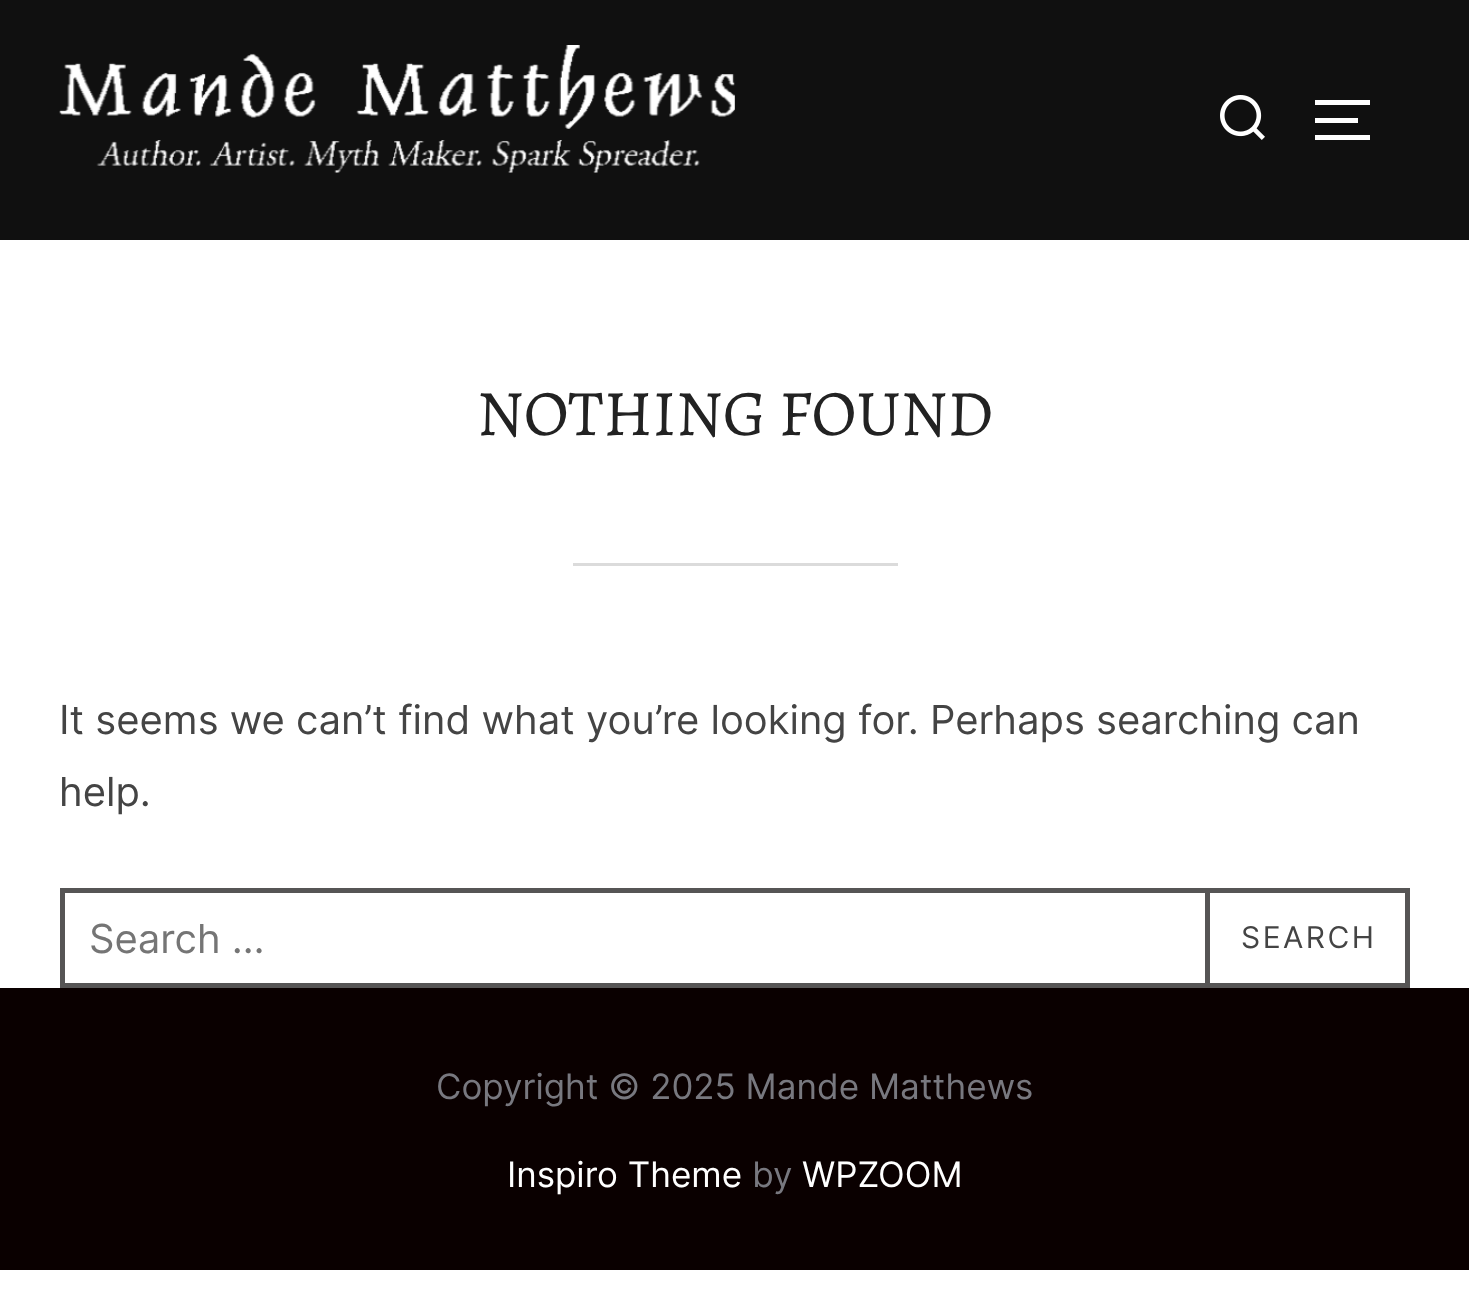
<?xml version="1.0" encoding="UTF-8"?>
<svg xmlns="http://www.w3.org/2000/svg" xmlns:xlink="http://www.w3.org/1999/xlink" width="1469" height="1300">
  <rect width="100%" height="100%" fill="#ffffff" />
  <rect width="1469" height="240" fill="#101010" />
  <image x="59" y="45" width="676" height="128" xlink:href="image1.png" />
  <image x="1220" y="95" width="45" height="45" xlink:href="image2.png" />
  <rect x="1315" y="100" width="55" height="5" fill="#ffffff" />
  <rect x="1315" y="118" width="43" height="5" fill="#ffffff" />
  <rect x="1315" y="135" width="55" height="5" fill="#ffffff" />
  <rect x="573" y="563" width="325" height="3" fill="#dbdbdb" />
  <rect x="62.5" y="890.5" width="1345" height="95" fill="none" stroke="#565555" stroke-width="5" />
  <rect x="1207.5" y="890.5" width="200" height="95" fill="none" stroke="#565555" stroke-width="5" />
  <rect y="988" width="1469" height="282" fill="#0a0000" />
  <text x="477" y="435" style="font-family: Alegreya; font-size: 65px; fill: #222222">NOTHING FOUND</text>
  <text x="59" y="734" style="font-family: Inter; font-size: 40px; fill: #444444">It seems we can’t find what you’re looking for. Perhaps searching can</text>
  <text x="59" y="806" style="font-family: Inter; font-size: 40px; fill: #444444">help.</text>
  <text x="89" y="953" style="font-family: Inter; font-size: 40px; fill: #757575">Search …</text>
  <text x="1241" y="948" style="font-family: Inter; font-size: 30px; letter-spacing: 2.5px; fill: #444444">SEARCH</text>
  <text x="436" y="1099" style="font-family: Inter; font-size: 35px; fill: #78787f">Copyright © 2025 Mande Matthews</text>
  <text x="507" y="1187" style="font-family: Inter; font-size: 35px; fill: #ffffff">Inspiro Theme</text>
  <text x="752" y="1187" style="font-family: Inter; font-size: 35px; fill: #78787f">by</text>
  <text x="802" y="1187" style="font-family: Inter; font-size: 35px; fill: #ffffff">WPZOOM</text>
</svg>
